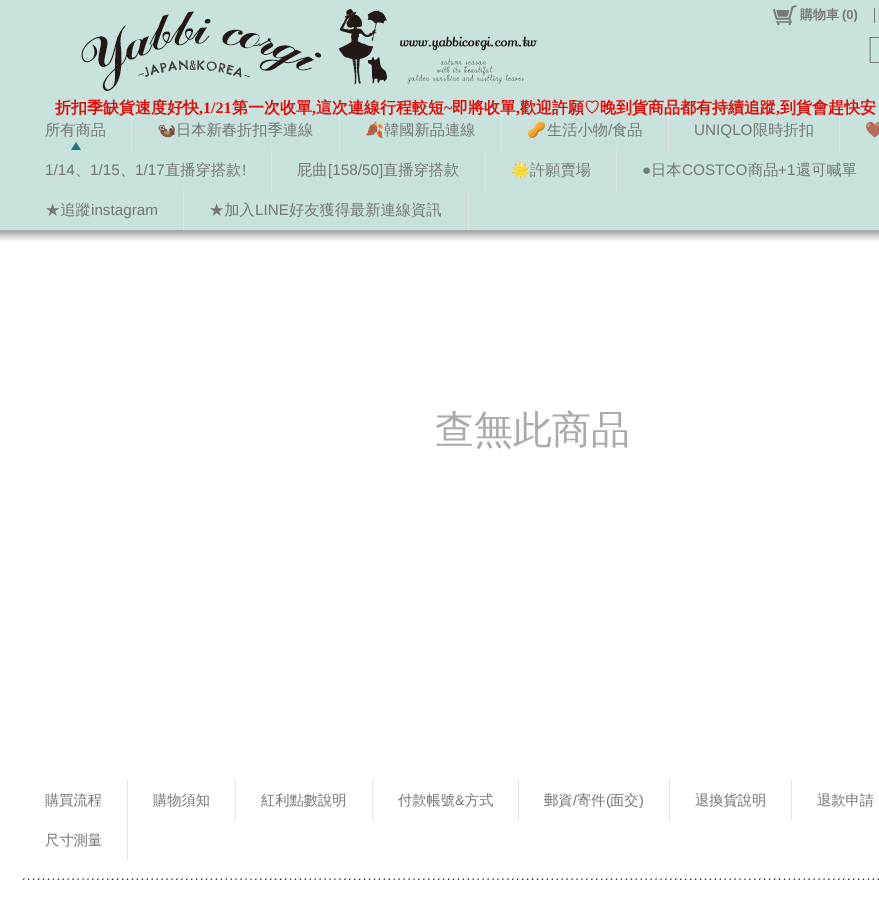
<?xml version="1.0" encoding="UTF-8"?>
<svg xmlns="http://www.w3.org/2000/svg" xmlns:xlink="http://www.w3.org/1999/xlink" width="879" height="898">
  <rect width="100%" height="100%" fill="#ffffff" />
  <rect width="879" height="230" fill="#c8e3de" />
  <image x="76" y="8" width="464" height="88" xlink:href="image1.png" />
  <image x="773" y="5" width="24" height="21" xlink:href="image2.png" />
  <rect x="874" y="8" width="1" height="15" fill="#777777" />
  <image x="869" y="37" width="10" height="26" xlink:href="image3.png" />
  <rect x="131" y="110" width="1" height="40" fill="#e4e4e4" />
  <path d="M 81 150 h -10 l 5 -8 z" fill="#1c787d" />
  <rect x="339" y="110" width="1" height="40" fill="#e4e4e4" />
  <rect x="501" y="110" width="1" height="40" fill="#e4e4e4" />
  <rect x="668" y="110" width="1" height="40" fill="#e4e4e4" />
  <rect x="839" y="110" width="1" height="40" fill="#e4e4e4" />
  <rect x="271" y="150" width="1" height="40" fill="#e4e4e4" />
  <rect x="485" y="150" width="1" height="40" fill="#e4e4e4" />
  <rect x="616" y="150" width="1" height="40" fill="#e4e4e4" />
  <rect x="183" y="190" width="1" height="40" fill="#e4e4e4" />
  <rect x="468" y="190" width="1" height="40" fill="#e4e4e4" />
  <image x="0" y="230" width="879" height="11" xlink:href="image4.png" />
  <image x="0" y="230" width="879" height="12" xlink:href="image5.png" />
  <rect x="127" y="780" width="1" height="80" fill="#e4e4e4" />
  <rect x="235" y="780" width="1" height="40" fill="#e4e4e4" />
  <rect x="372" y="780" width="1" height="40" fill="#e4e4e4" />
  <rect x="518" y="780" width="1" height="40" fill="#e4e4e4" />
  <rect x="669" y="780" width="1" height="40" fill="#e4e4e4" />
  <rect x="791" y="780" width="1" height="40" fill="#e4e4e4" />
  <image x="23" y="878" width="856" height="2" xlink:href="image6.png" />
  <text x="800" y="19" style="font-family: WenQuanYi Zen Hei; font-size: 13px; font-weight: bold; fill: #777777">購物車</text>
  <text x="842" y="19" style="font-family: Liberation Sans; font-size: 13px; font-weight: bold; fill: #777777">(0)</text>
  <text x="45" y="135" style="font-family: WenQuanYi Zen Hei; font-size: 15.25px; font-weight: 500; fill: #777777">所有商品</text>
  <text x="157" y="135" style="font-family: Noto Color Emoji; font-size: 15.25px; fill: #777777">🦦</text>
  <text x="176" y="135" style="font-family: WenQuanYi Zen Hei; font-size: 15.25px; font-weight: 500; fill: #777777">日本新春折扣季連線</text>
  <text x="365" y="135" style="font-family: Noto Color Emoji; font-size: 15.25px; fill: #777777">🍂</text>
  <text x="384" y="135" style="font-family: WenQuanYi Zen Hei; font-size: 15.25px; font-weight: 500; fill: #777777">韓國新品連線</text>
  <text x="527" y="135" style="font-family: Noto Color Emoji; font-size: 15.25px; fill: #777777">🥜</text>
  <text x="547" y="135" style="font-family: WenQuanYi Zen Hei; font-size: 15.25px; font-weight: 500; fill: #777777">生活小物</text>
  <text x="608" y="135" style="font-family: Liberation Sans; font-size: 15.25px; fill: #777777">/</text>
  <text x="612" y="135" style="font-family: WenQuanYi Zen Hei; font-size: 15.25px; font-weight: 500; fill: #777777">食品</text>
  <text x="694" y="135" style="font-family: Liberation Sans; font-size: 15.25px; fill: #777777">UNIQLO</text>
  <text x="753" y="135" style="font-family: WenQuanYi Zen Hei; font-size: 15.25px; font-weight: 500; fill: #777777">限時折扣</text>
  <text x="865" y="135" style="font-family: Noto Color Emoji; font-size: 15.25px; fill: #777777">🤎</text>
  <text x="45" y="175" style="font-family: Liberation Sans; font-size: 15.25px; fill: #777777">1/14</text>
  <text x="75" y="175" style="font-family: WenQuanYi Zen Hei; font-size: 15.25px; font-weight: 500; fill: #777777">、</text>
  <text x="90" y="175" style="font-family: Liberation Sans; font-size: 15.25px; fill: #777777">1/15</text>
  <text x="120" y="175" style="font-family: WenQuanYi Zen Hei; font-size: 15.25px; font-weight: 500; fill: #777777">、</text>
  <text x="135" y="175" style="font-family: Liberation Sans; font-size: 15.25px; fill: #777777">1/17</text>
  <text x="165" y="175" style="font-family: WenQuanYi Zen Hei; font-size: 15.25px; font-weight: 500; fill: #777777">直播穿搭款</text>
  <text x="242" y="175" style="font-family: Liberation Sans; font-size: 15.25px; fill: #777777">!</text>
  <text x="297" y="175" style="font-family: WenQuanYi Zen Hei; font-size: 15.25px; font-weight: 500; fill: #777777">屁曲</text>
  <text x="328" y="175" style="font-family: Liberation Sans; font-size: 15.25px; fill: #777777">[158/50]</text>
  <text x="383" y="175" style="font-family: WenQuanYi Zen Hei; font-size: 15.25px; font-weight: 500; fill: #777777">直播穿搭款</text>
  <text x="511" y="175" style="font-family: Noto Color Emoji; font-size: 15.25px; fill: #777777">🌟</text>
  <text x="530" y="175" style="font-family: WenQuanYi Zen Hei; font-size: 15.25px; font-weight: 500; fill: #777777">許願賣場</text>
  <text x="642" y="175" style="font-family: Liberation Sans; font-size: 15.25px; fill: #777777">●</text>
  <text x="651" y="175" style="font-family: WenQuanYi Zen Hei; font-size: 15.25px; font-weight: 500; fill: #777777">日本</text>
  <text x="682" y="175" style="font-family: Liberation Sans; font-size: 15.25px; fill: #777777">COSTCO</text>
  <text x="748" y="175" style="font-family: WenQuanYi Zen Hei; font-size: 15.25px; font-weight: 500; fill: #777777">商品</text>
  <text x="778" y="175" style="font-family: Liberation Sans; font-size: 15.25px; fill: #777777">+1</text>
  <text x="796" y="175" style="font-family: WenQuanYi Zen Hei; font-size: 15.25px; font-weight: 500; fill: #777777">還可喊單</text>
  <text x="45" y="215" style="font-family: WenQuanYi Zen Hei; font-size: 15.25px; font-weight: 500; fill: #777777">★追蹤</text>
  <text x="91" y="215" style="font-family: Liberation Sans; font-size: 15.25px; fill: #777777">instagram</text>
  <text x="209" y="215" style="font-family: WenQuanYi Zen Hei; font-size: 15.25px; font-weight: 500; fill: #777777">★加入</text>
  <text x="255" y="215" style="font-family: Liberation Sans; font-size: 15.25px; fill: #777777">LINE</text>
  <text x="289" y="215" style="font-family: WenQuanYi Zen Hei; font-size: 15.25px; font-weight: 500; fill: #777777">好友獲得最新連線資訊</text>
  <text x="435" y="443" style="font-family: WenQuanYi Zen Hei; font-size: 39px; font-weight: 500; fill: #aaaaaa">查無此商品</text>
  <text x="45" y="805" style="font-family: WenQuanYi Zen Hei; font-size: 14.25px; font-weight: 500; fill: #777777">購買流程</text>
  <text x="153" y="805" style="font-family: WenQuanYi Zen Hei; font-size: 14.25px; font-weight: 500; fill: #777777">購物須知</text>
  <text x="261" y="805" style="font-family: WenQuanYi Zen Hei; font-size: 14.25px; font-weight: 500; fill: #777777">紅利點數說明</text>
  <text x="398" y="805" style="font-family: WenQuanYi Zen Hei; font-size: 14.25px; font-weight: 500; fill: #777777">付款帳號</text>
  <text x="455" y="805" style="font-family: Liberation Sans; font-size: 14.25px; fill: #777777">&amp;</text>
  <text x="465" y="805" style="font-family: WenQuanYi Zen Hei; font-size: 14.25px; font-weight: 500; fill: #777777">方式</text>
  <text x="544" y="805" style="font-family: WenQuanYi Zen Hei; font-size: 14.25px; font-weight: 500; fill: #777777">郵資</text>
  <text x="573" y="805" style="font-family: Liberation Sans; font-size: 14.25px; fill: #777777">/</text>
  <text x="577" y="805" style="font-family: WenQuanYi Zen Hei; font-size: 14.25px; font-weight: 500; fill: #777777">寄件</text>
  <text x="606" y="805" style="font-family: Liberation Sans; font-size: 14.25px; fill: #777777">(</text>
  <text x="610" y="805" style="font-family: WenQuanYi Zen Hei; font-size: 14.25px; font-weight: 500; fill: #777777">面交</text>
  <text x="639" y="805" style="font-family: Liberation Sans; font-size: 14.25px; fill: #777777">)</text>
  <text x="695" y="805" style="font-family: WenQuanYi Zen Hei; font-size: 14.25px; font-weight: 500; fill: #777777">退換貨說明</text>
  <text x="817" y="805" style="font-family: WenQuanYi Zen Hei; font-size: 14.25px; font-weight: 500; fill: #777777">退款申請</text>
  <text x="45" y="845" style="font-family: WenQuanYi Zen Hei; font-size: 14.25px; font-weight: 500; fill: #777777">尺寸測量</text>
  <text x="55" y="113" style="font-family: WenQuanYi Zen Hei; font-size: 16px; font-weight: bold; fill: #e20a06">折扣季缺貨速度好快</text>
  <text x="199" y="113" style="font-family: Liberation Serif; font-size: 16px; font-weight: bold; fill: #e20a06">,1/21</text>
  <text x="232" y="113" style="font-family: WenQuanYi Zen Hei; font-size: 16px; font-weight: bold; fill: #e20a06">第一次收單</text>
  <text x="316" y="113" style="font-family: WenQuanYi Zen Hei; font-size: 16px; font-weight: bold; fill: #e20a06">這次連線行程較短</text>
  <text x="444" y="113" style="font-family: Liberation Serif; font-size: 16px; font-weight: bold; fill: #e20a06">~</text>
  <text x="452" y="113" style="font-family: WenQuanYi Zen Hei; font-size: 16px; font-weight: bold; fill: #e20a06">即將收單</text>
  <text x="520" y="113" style="font-family: WenQuanYi Zen Hei; font-size: 16px; font-weight: bold; fill: #e20a06">歡迎許願♡晚到貨商品都有持續追蹤</text>
  <text x="780" y="113" style="font-family: WenQuanYi Zen Hei; font-size: 16px; font-weight: bold; fill: #e20a06">到貨會趕快安</text>
  <text x="312" y="113" style="font-family: Liberation Serif; font-size: 16px; font-weight: bold; fill: #e20a06">,</text>
  <text x="516" y="113" style="font-family: Liberation Serif; font-size: 16px; font-weight: bold; fill: #e20a06">,</text>
  <text x="776" y="113" style="font-family: Liberation Serif; font-size: 16px; font-weight: bold; fill: #e20a06">,</text>
</svg>
